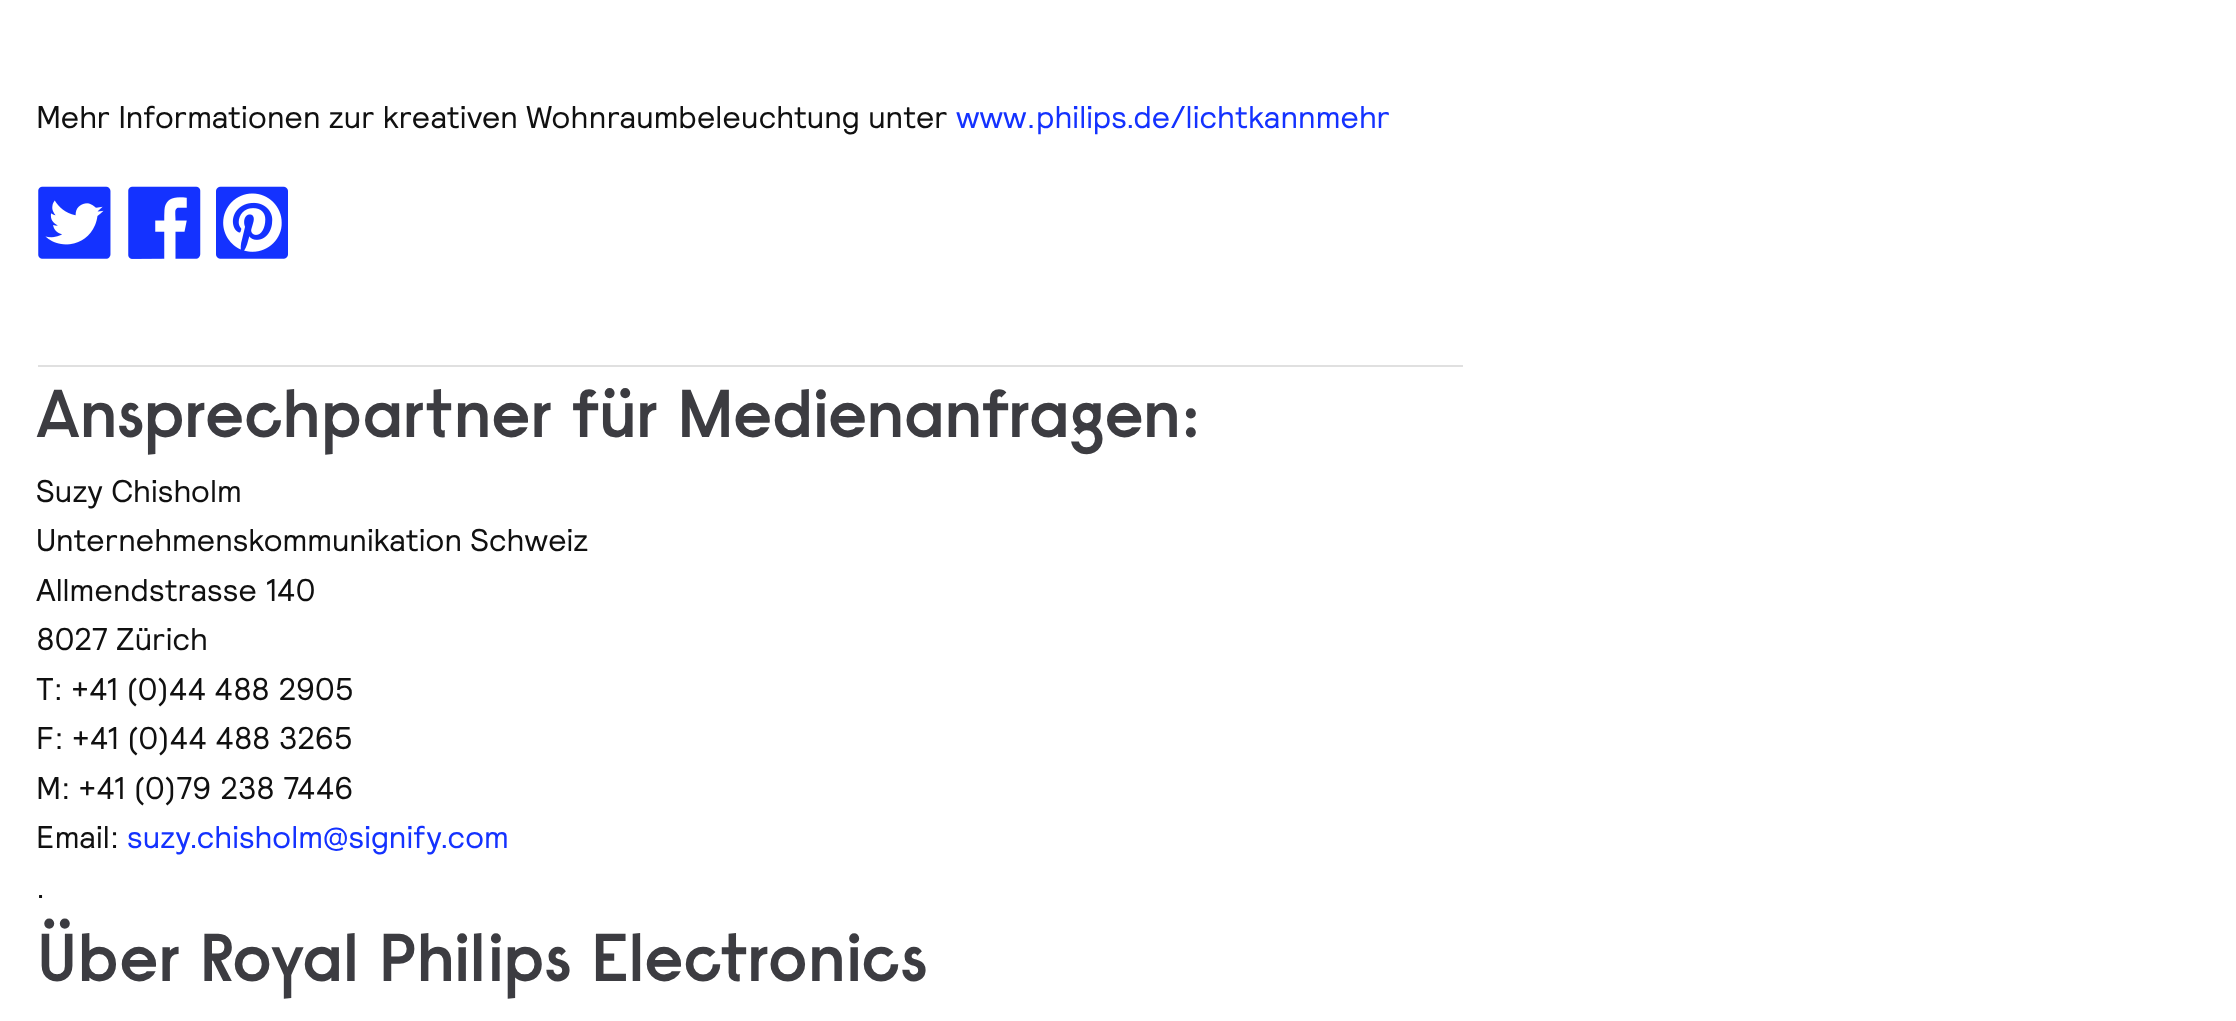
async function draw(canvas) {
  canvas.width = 2236;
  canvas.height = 1021;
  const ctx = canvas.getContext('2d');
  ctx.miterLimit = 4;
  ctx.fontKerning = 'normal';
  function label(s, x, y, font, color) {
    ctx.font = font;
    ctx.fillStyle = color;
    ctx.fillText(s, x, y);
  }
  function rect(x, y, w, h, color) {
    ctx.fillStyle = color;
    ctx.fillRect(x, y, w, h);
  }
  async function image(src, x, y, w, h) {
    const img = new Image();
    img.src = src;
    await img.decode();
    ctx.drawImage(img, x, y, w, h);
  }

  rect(0, 0, 2236, 1021, '#fff');
  label('Mehr Informationen zur kreativen Wohnraumbeleuchtung unter', 36, 128, '31.5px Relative', '#101010');
  label('www.philips.de/lichtkannmehr', 956, 128, '31.5px Relative', '#1432ff');
  await image('assets/img1.png', 38, 186, 73, 73);
  await image('assets/img2.png', 128, 186, 73, 73);
  await image('assets/img3.png', 216, 186, 72, 73);
  rect(38, 365, 1425, 2, '#e0e0e0');
  ctx.letterSpacing = '-0.45px';
  label('Ansprechpartner für Medienanfragen:', 36, 437, '600 67.5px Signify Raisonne', '#3c3c41');
  ctx.letterSpacing = '0px';
  label('Suzy Chisholm', 36, 502, '31.5px Relative', '#101010');
  label('Unternehmenskommunikation Schweiz', 36, 551, '31.5px Relative', '#101010');
  label('Allmendstrasse 140', 36, 601, '31.5px Relative', '#101010');
  label('8027 Zürich', 36, 650, '31.5px Relative', '#101010');
  label('T: +41 (0)44 488 2905', 36, 700, '31.5px Relative', '#101010');
  label('F: +41 (0)44 488 3265', 36, 749, '31.5px Relative', '#101010');
  label('M: +41 (0)79 238 7446', 36, 799, '31.5px Relative', '#101010');
  label('Email:', 36, 848, '31.5px Relative', '#101010');
  label('suzy.chisholm@signify.com', 127, 848, '31.5px Relative', '#1432ff');
  label('.', 36, 898, '31.5px Relative', '#101010');
  ctx.letterSpacing = '-0.45px';
  label('Über Royal Philips Electronics', 36, 981, '600 67.5px Signify Raisonne', '#3c3c41');
}

draw(document.querySelector('canvas'));
